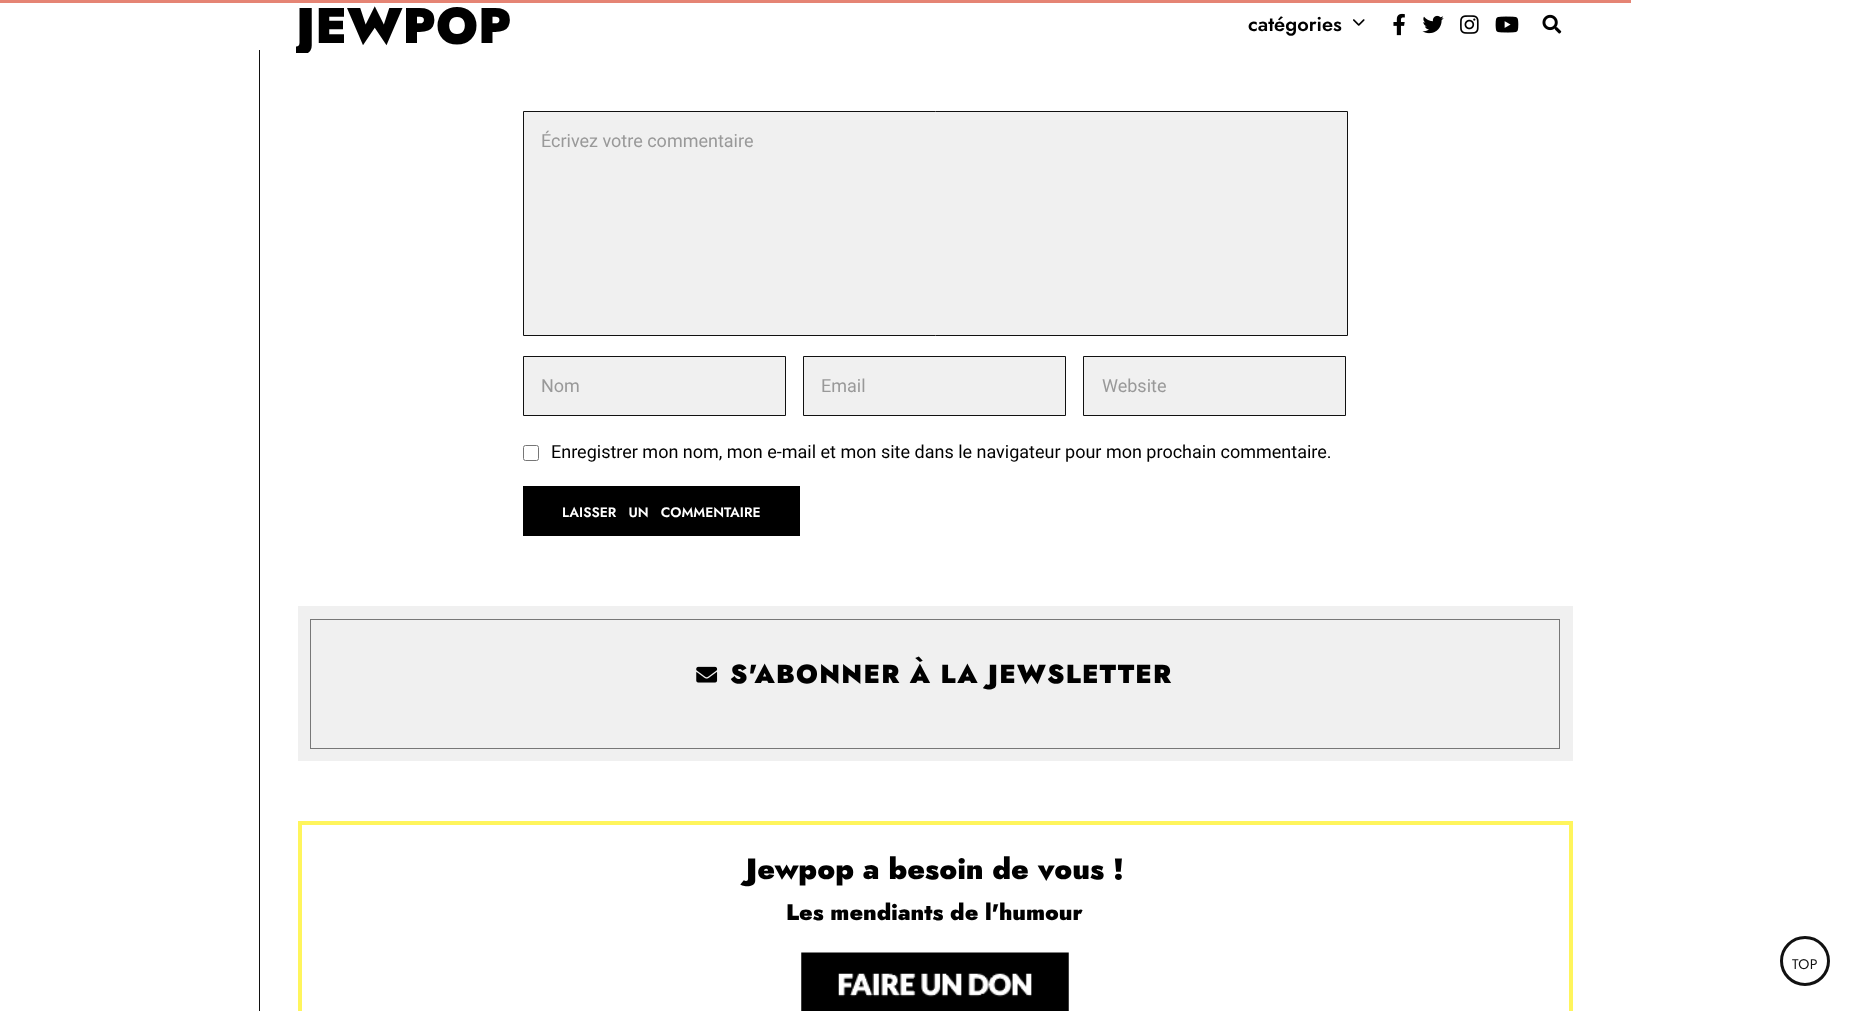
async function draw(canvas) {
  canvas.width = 1867;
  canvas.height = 1011;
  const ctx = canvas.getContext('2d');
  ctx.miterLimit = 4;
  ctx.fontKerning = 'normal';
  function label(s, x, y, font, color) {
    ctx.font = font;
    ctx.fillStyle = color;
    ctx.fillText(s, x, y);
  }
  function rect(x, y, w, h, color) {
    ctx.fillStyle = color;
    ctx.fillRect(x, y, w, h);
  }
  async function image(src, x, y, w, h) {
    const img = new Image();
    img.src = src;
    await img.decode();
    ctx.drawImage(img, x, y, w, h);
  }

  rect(0, 0, 1867, 1011, '#fff');
  rect(0, 0, 1631, 3, '#e58474');
  rect(259, 50, 1, 961, '#111');
  ctx.save();
  ctx.beginPath();
  ctx.rect(296, 0, 215, 53);
  ctx.clip();
  label('JEWPOP', 296, 43, '900 50px Jost', '#000');
  ctx.restore();
  label('catégories', 1248, 31, '600 20px Jost', '#000');
  await image('assets/img1.png', 1353, 19, 12, 7);
  await image('assets/img2.png', 1393, 13, 12, 23);
  await image('assets/img3.png', 1422, 15, 22, 19);
  await image('assets/img4.png', 1460, 15, 19, 19);
  await image('assets/img5.png', 1495, 16, 24, 17);
  await image('assets/img6.png', 1542, 14, 20, 20);
  ctx.fillStyle = '#f0f0f0';
  ctx.beginPath();
  ctx.rect(523.5, 111.5, 824, 224);
  ctx.fill();
  ctx.strokeStyle = '#111';
  ctx.stroke();
  label('Écrivez votre commentaire', 541, 147, '18px Roboto', '#999');
  ctx.fillStyle = '#f0f0f0';
  ctx.beginPath();
  ctx.rect(523.5, 356.5, 262, 59);
  ctx.fill();
  ctx.stroke();
  label('Nom', 541, 392, '18px Roboto', '#999');
  ctx.fillStyle = '#f0f0f0';
  ctx.beginPath();
  ctx.rect(803.5, 356.5, 262, 59);
  ctx.fill();
  ctx.stroke();
  label('Email', 821, 392, '18px Roboto', '#999');
  ctx.fillStyle = '#f0f0f0';
  ctx.beginPath();
  ctx.rect(1083.5, 356.5, 262, 59);
  ctx.fill();
  ctx.stroke();
  label('Website', 1102, 392, '18px Roboto', '#999');
  ctx.beginPath();
  ctx.roundRect(523.5, 445.5, 15, 15, 2);
  ctx.strokeStyle = '#767676';
  ctx.stroke();
  label('Enregistrer mon nom, mon e-mail et mon site dans le navigateur pour mon prochain commentaire.', 551, 458, '18px Roboto', '#000');
  rect(523, 486, 277, 50, '#000');
  ctx.wordSpacing = '8px';
  label('LAISSER UN COMMENTAIRE', 562, 517, '600 13.75px Jost', '#fff');
  rect(298, 606, 1275, 155, '#f0f0f0');
  ctx.strokeStyle = '#777';
  ctx.strokeRect(310.5, 619.5, 1249, 129);
  await image('assets/img7.png', 696, 666, 22, 17);
  ctx.letterSpacing = '1.25px';
  ctx.wordSpacing = '0px';
  label('S\'ABONNER À LA JEWSLETTER', 730, 683, '900 26px Jost', '#000');
  ctx.strokeStyle = '#fff55c';
  ctx.lineWidth = 4;
  ctx.strokeRect(300, 823, 1271, 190);
  ctx.letterSpacing = '0px';
  label('Jewpop a besoin de vous !', 746, 879, '900 29.25px Jost', '#000');
  label('Les mendiants de l\'humour', 786, 920, '900 22.5px Jost', '#000');
  await image('assets/img8.png', 801, 952, 268, 59);
  ctx.beginPath();
  ctx.arc(1805, 961, 23.5, 0, 2 * Math.PI);
  ctx.strokeStyle = '#111';
  ctx.lineWidth = 3;
  ctx.stroke();
  ctx.letterSpacing = '0.5px';
  label('TOP', 1792, 969, '14px Jost', '#111');
}

draw(document.querySelector('canvas'));
